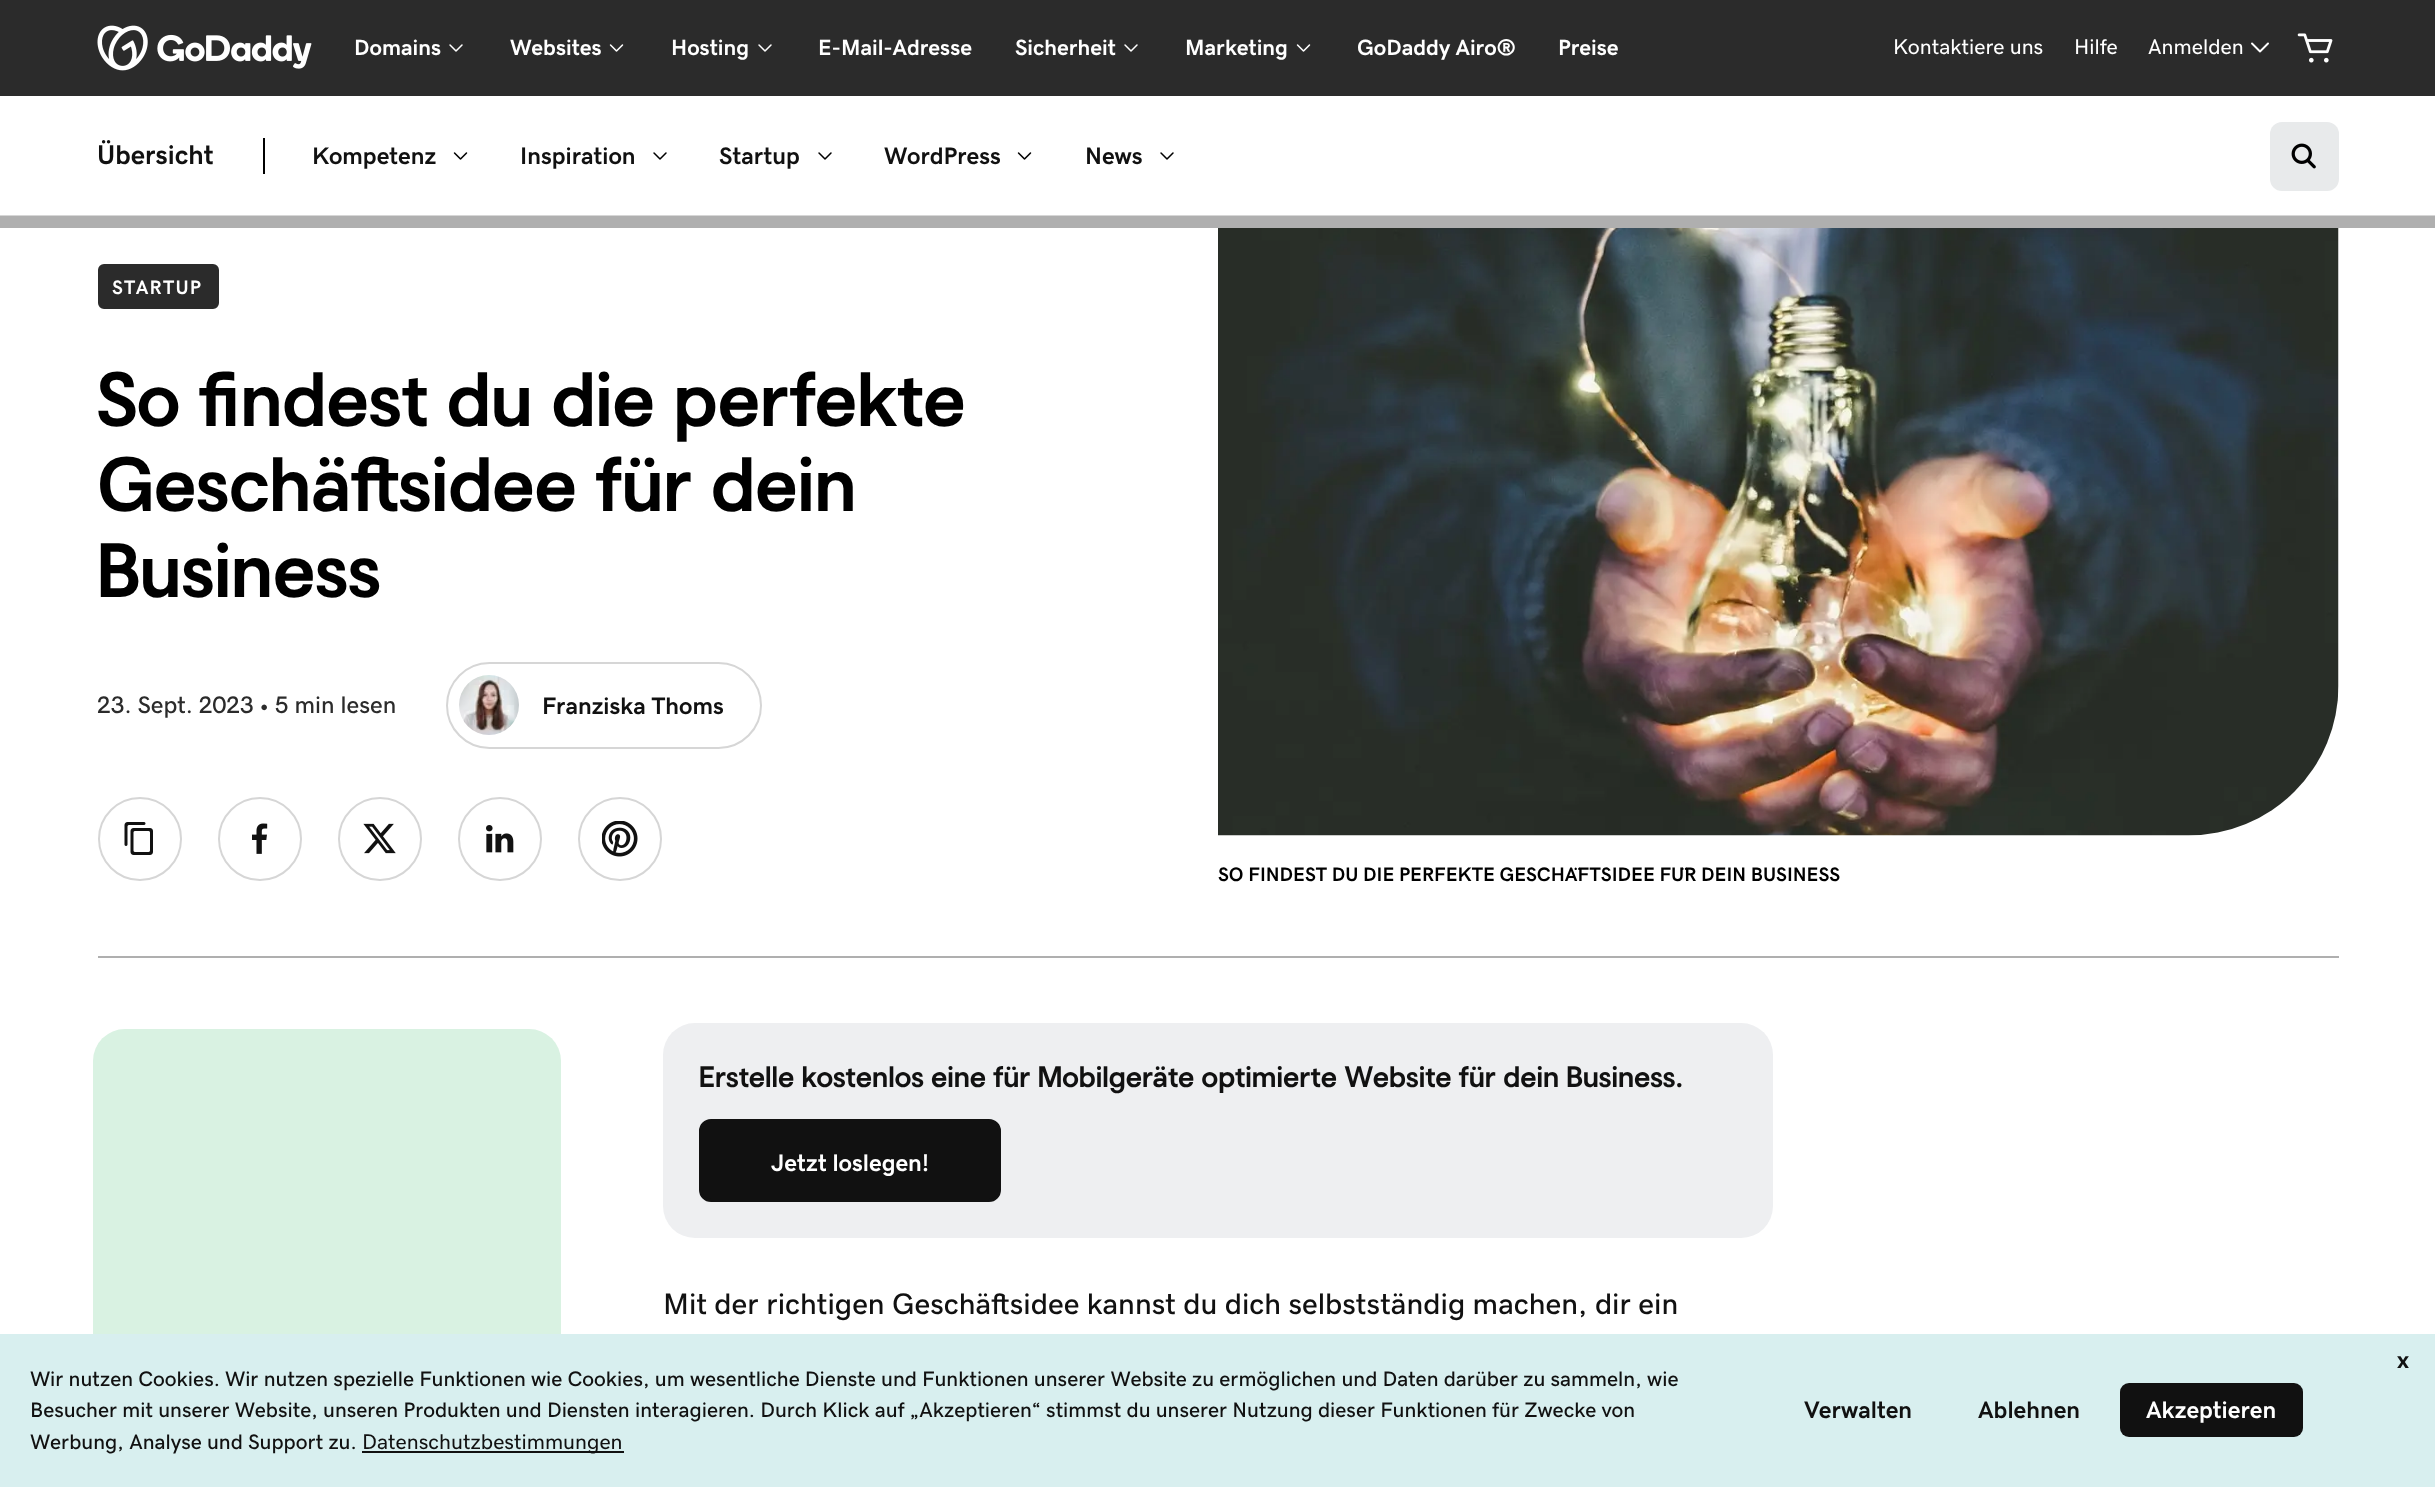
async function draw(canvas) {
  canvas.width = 2435;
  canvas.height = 1487;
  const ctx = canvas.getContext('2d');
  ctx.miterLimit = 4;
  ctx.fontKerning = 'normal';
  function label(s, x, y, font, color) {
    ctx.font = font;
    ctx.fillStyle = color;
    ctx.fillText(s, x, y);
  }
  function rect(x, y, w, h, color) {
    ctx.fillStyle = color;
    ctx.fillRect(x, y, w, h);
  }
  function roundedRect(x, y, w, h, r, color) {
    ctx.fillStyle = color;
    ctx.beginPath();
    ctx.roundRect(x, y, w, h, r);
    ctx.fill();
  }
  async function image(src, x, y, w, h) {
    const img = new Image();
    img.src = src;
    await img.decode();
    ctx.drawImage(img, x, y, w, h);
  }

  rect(0, 0, 2435, 1487, '#fff');
  rect(0, 0, 2435, 96, '#2b2b2b');
  await image('assets/img1.png', 97, 25, 215, 46);
  label('Domains', 354, 55, '800 22.25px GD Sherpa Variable', '#fff');
  await image('assets/img2.png', 449, 44, 14, 8);
  label('Websites', 510, 55, '800 22.25px GD Sherpa Variable', '#fff');
  await image('assets/img3.png', 609, 44, 15, 8);
  label('Hosting', 671, 55, '800 22.25px GD Sherpa Variable', '#fff');
  await image('assets/img2.png', 758, 44, 14, 8);
  label('E-Mail-Adresse', 818, 55, '800 22.25px GD Sherpa Variable', '#fff');
  label('Sicherheit', 1015, 55, '800 22.25px GD Sherpa Variable', '#fff');
  await image('assets/img2.png', 1124, 44, 14, 8);
  label('Marketing', 1185, 55, '800 22.25px GD Sherpa Variable', '#fff');
  await image('assets/img3.png', 1296, 44, 15, 8);
  label('GoDaddy Airo®', 1357, 55, '800 22.25px GD Sherpa Variable', '#fff');
  label('Preise', 1558, 55, '800 22.25px GD Sherpa Variable', '#fff');
  label('Kontaktiere uns', 1893, 54, '21.25px GD Sherpa Variable', '#fff');
  label('Hilfe', 2074, 54, '21.25px GD Sherpa Variable', '#fff');
  label('Anmelden', 2148, 54, '21.25px GD Sherpa Variable', '#fff');
  await image('assets/img4.png', 2251, 42, 18, 11);
  await image('assets/img5.png', 2297, 33, 36, 30);
  rect(0, 215, 2435, 1, '#d6d6d6');
  label('Übersicht', 97, 164, '800 27px GD Sherpa Variable', '#111');
  rect(263, 138, 2, 36, '#000');
  label('Kompetenz', 312, 164, 'bold 24px "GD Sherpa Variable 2"', '#111');
  await image('assets/img6.png', 453, 152, 15, 8);
  label('Inspiration', 520, 164, 'bold 24px "GD Sherpa Variable 2"', '#111');
  await image('assets/img7.png', 653, 152, 14, 8);
  label('Startup', 719, 164, 'bold 24px "GD Sherpa Variable 2"', '#111');
  await image('assets/img7.png', 818, 152, 14, 8);
  label('WordPress', 884, 164, 'bold 24px "GD Sherpa Variable 2"', '#111');
  await image('assets/img6.png', 1017, 152, 15, 8);
  label('News', 1085, 164, 'bold 24px "GD Sherpa Variable 2"', '#111');
  await image('assets/img7.png', 1160, 152, 14, 8);
  roundedRect(2270, 122, 69, 69, 12, '#e8eaeb');
  await image('assets/img8.png', 2291, 143, 25, 26);
  rect(0, 216, 2435, 12, '#afafaf');
  rect(98, 956, 2241, 2, '#afafaf');
  ctx.fillStyle = '#2b2b2b';
  ctx.beginPath();
  ctx.roundRect(99.5, 265.5, 118, 42, 4.5);
  ctx.fill();
  ctx.strokeStyle = '#2b2b2b';
  ctx.lineWidth = 3;
  ctx.stroke();
  ctx.letterSpacing = '1.25px';
  label('STARTUP', 112, 294, 'bold 19.5px GD Sherpa Variable', '#fff');
  ctx.letterSpacing = '0px';
  label('So findest du die perfekte', 97, 426, 'bold 78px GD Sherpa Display', '#000');
  label('Geschäftsidee für dein', 97, 511, 'bold 78px GD Sherpa Display', '#000');
  label('Business', 97, 597, 'bold 78px GD Sherpa Display', '#000');
  label('23. Sept. 2023 • 5 min lesen', 97, 713, '500 24px GD Sherpa Variable', '#2b2b2b');
  ctx.beginPath();
  ctx.roundRect(447, 663, 314, 85, 42.5);
  ctx.strokeStyle = '#d6d6d6';
  ctx.lineWidth = 2;
  ctx.stroke();
  await image('assets/img9.png', 459, 675, 60, 60);
  label('Franziska Thoms', 542, 714, 'bold 24px GD Sherpa Variable', '#111');
  ctx.beginPath();
  ctx.arc(140, 839, 41, 0, 2 * Math.PI);
  ctx.stroke();
  await image('assets/img10.png', 124, 822, 29, 33);
  ctx.beginPath();
  ctx.arc(260, 839, 41, 0, 2 * Math.PI);
  ctx.stroke();
  await image('assets/img11.png', 252, 823, 16, 31);
  ctx.beginPath();
  ctx.arc(380, 839, 41, 0, 2 * Math.PI);
  ctx.stroke();
  await image('assets/img12.png', 363, 823, 33, 31);
  ctx.beginPath();
  ctx.arc(500, 839, 41, 0, 2 * Math.PI);
  ctx.stroke();
  await image('assets/img13.png', 486, 825, 28, 28);
  ctx.beginPath();
  ctx.arc(620, 839, 41, 0, 2 * Math.PI);
  ctx.stroke();
  await image('assets/img14.png', 602, 821, 36, 36);
  await image('assets/img15.png', 1218, 228, 1121, 608);
  label('SO FINDEST DU DIE PERFEKTE GESCHÄFTSIDEE FÜR DEIN BUSINESS', 1218, 881, 'bold 19.5px GD Sherpa Variable', '#000');
  roundedRect(93, 1029, 468, 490, 32, '#d9f2e2');
  roundedRect(663, 1023, 1110, 215, 32, '#eeeff1');
  label('Erstelle kostenlos eine für Mobilgeräte optimierte Website für dein Business.', 699, 1087, 'bold 30px GD Sherpa Display', '#111');
  ctx.beginPath();
  ctx.roundRect(700.5, 1120.5, 299, 80, 10.5);
  ctx.fill();
  ctx.strokeStyle = '#111';
  ctx.lineWidth = 3;
  ctx.stroke();
  label('Jetzt loslegen!', 771, 1171, '800 24px GD Sherpa Variable', '#fff');
  label('Mit der richtigen Geschäftsidee kannst du dich selbstständig machen, dir ein', 663, 1314, '500 29.8px GD Sherpa Variable', '#111');
  rect(0, 1334, 2435, 153, '#d8efef');
  label('x', 2397, 1368, 'bold 24px "GD Sherpa Variable 2"', '#111');
  label('Wir nutzen Cookies. Wir nutzen spezielle Funktionen wie Cookies, um wesentliche Dienste und Funktionen unserer Website zu ermöglichen und Daten darüber zu sammeln, wie', 30, 1386, '500 21px GD Sherpa Variable', '#111');
  label('Besucher mit unserer Website, unseren Produkten und Diensten interagieren. Durch Klick auf „Akzeptieren“ stimmst du unserer Nutzung dieser Funktionen für Zwecke von', 30, 1417, '500 21px GD Sherpa Variable', '#111');
  label('Werbung, Analyse und Support zu.', 30, 1449, '500 21px GD Sherpa Variable', '#111');
  rect(362, 1451, 262, 2, '#111');
  label('Datenschutzbestimmungen', 362, 1449, '21.25px GD Sherpa Variable', '#111');
  label('Verwalten', 1804, 1418, 'bold 24px "GD Sherpa Variable 2"', '#111');
  label('Ablehnen', 1978, 1418, 'bold 24px "GD Sherpa Variable 2"', '#111');
  roundedRect(2120, 1383, 183, 54, 9, '#111');
  label('Akzeptieren', 2146, 1418, 'bold 24px "GD Sherpa Variable 2"', '#fff');
}

draw(document.querySelector('canvas'));
